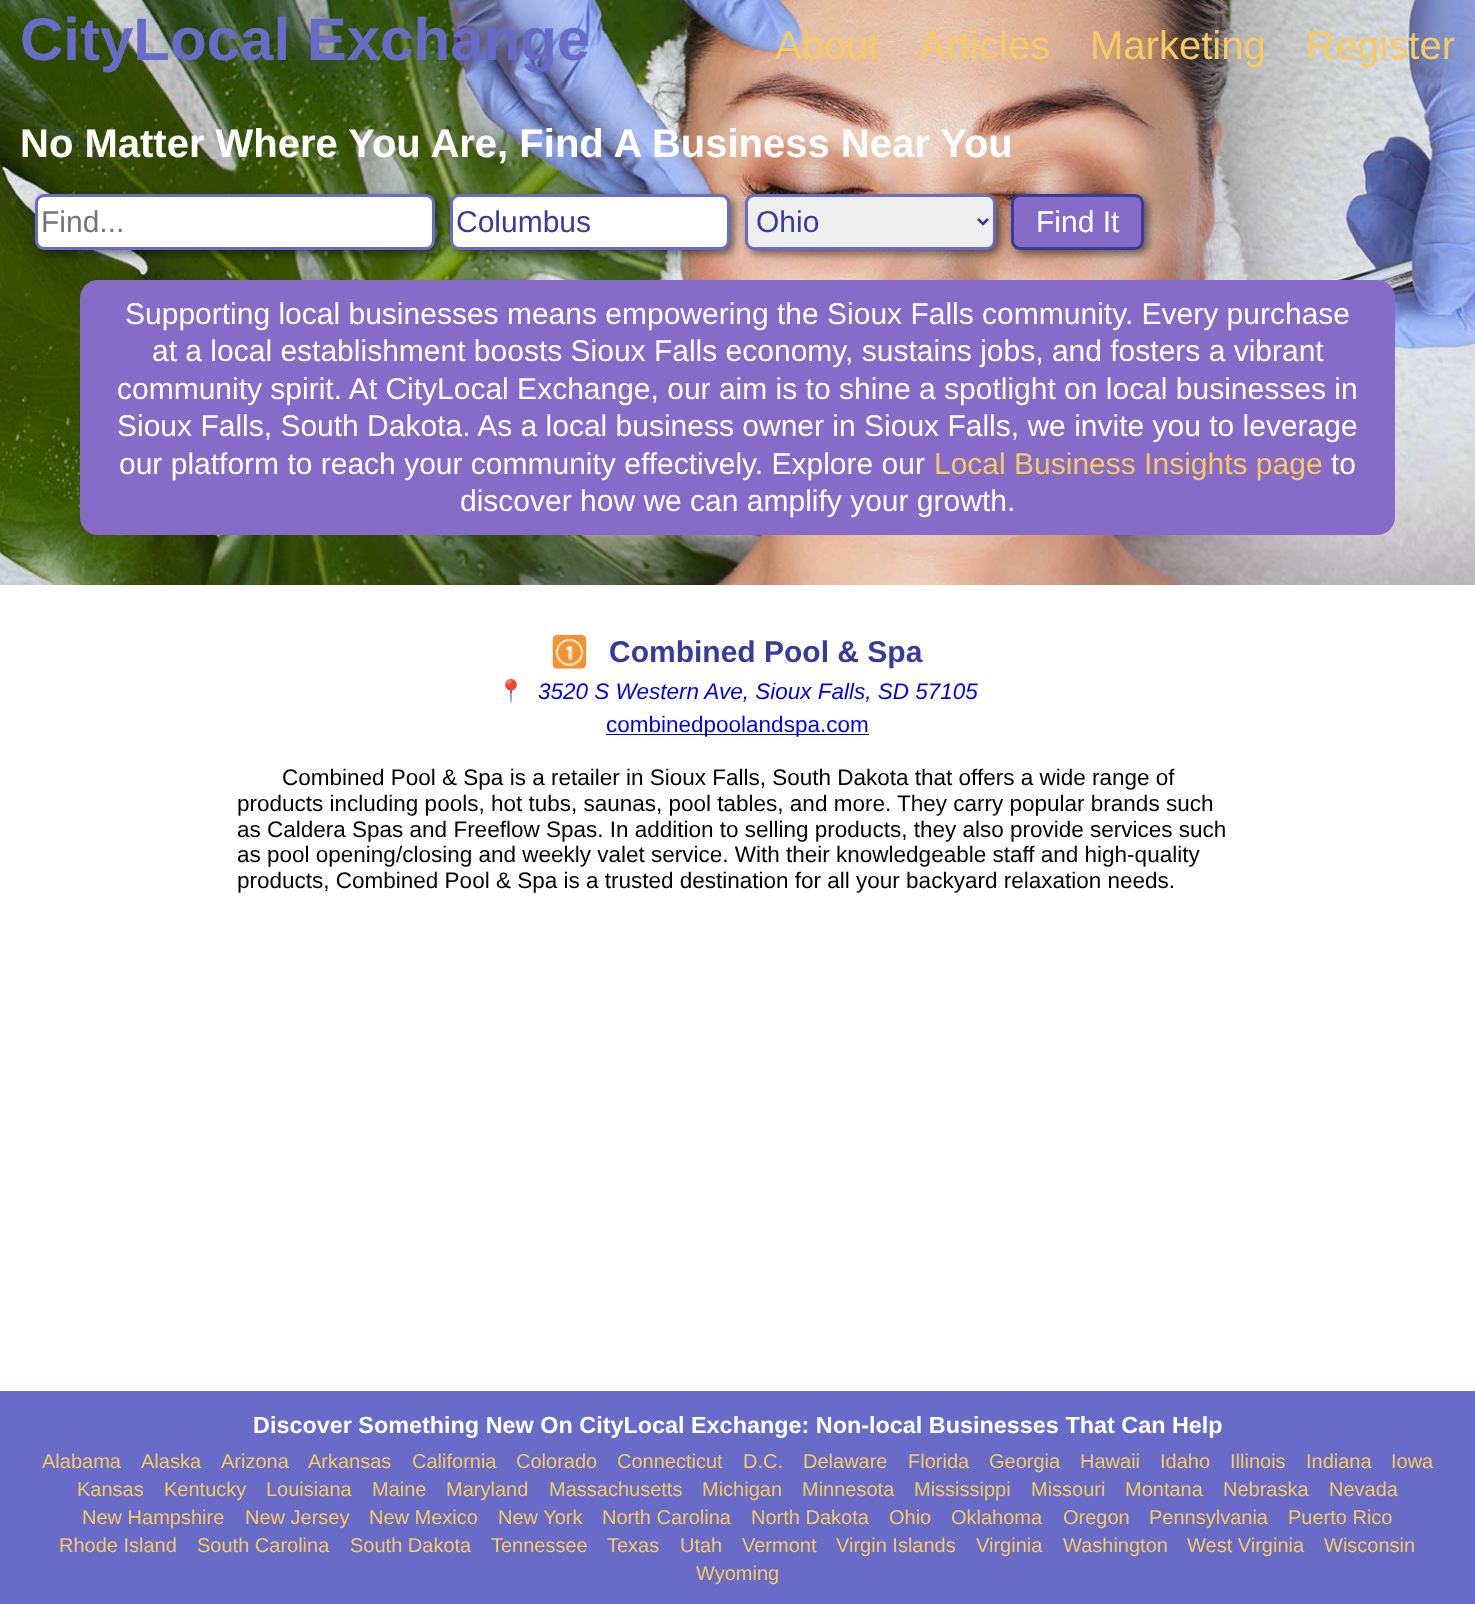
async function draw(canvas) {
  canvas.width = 1475;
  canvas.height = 1604;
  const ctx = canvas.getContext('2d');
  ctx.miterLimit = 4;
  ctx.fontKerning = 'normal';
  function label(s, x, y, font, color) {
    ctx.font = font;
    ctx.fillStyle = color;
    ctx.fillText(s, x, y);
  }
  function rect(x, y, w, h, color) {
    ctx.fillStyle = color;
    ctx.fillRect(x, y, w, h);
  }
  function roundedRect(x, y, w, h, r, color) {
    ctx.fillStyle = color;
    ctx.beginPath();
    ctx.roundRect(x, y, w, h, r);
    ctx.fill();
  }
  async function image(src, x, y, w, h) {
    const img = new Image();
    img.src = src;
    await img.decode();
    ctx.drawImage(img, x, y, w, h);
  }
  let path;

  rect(0, 0, 1475, 1604, '#fff');
  await image('assets/img1.png', 0, 0, 1475, 585);
  label('CityLocal Exchange', 20, 60, 'bold 60px Liberation Sans', '#686cc8');
  label('About', 775, 59, '40px Liberation Sans', '#f7cb62');
  label('Articles', 919, 59, '40px Liberation Sans', '#f7cb62');
  label('Marketing', 1090, 59, '40px Liberation Sans', '#f7cb62');
  label('Register', 1306, 59, '40px Liberation Sans', '#f7cb62');
  label('No Matter Where You Are, Find A Business Near You', 20, 157, 'bold 40px Liberation Sans', '#fff');
  ctx.fillStyle = '#00000080';
  ctx.filter = 'blur(4px)';
  ctx.beginPath();
  ctx.roundRect(39, 198, 400, 56, 9);
  ctx.fill();
  ctx.filter = 'none';
  ctx.fillStyle = '#fff';
  ctx.beginPath();
  ctx.roundRect(36.5, 195.5, 397, 53, 7.5);
  ctx.fill();
  ctx.strokeStyle = '#686cc8';
  ctx.lineWidth = 3;
  ctx.stroke();
  label('Find...', 41, 232, '30px Liberation Sans', '#757575');
  ctx.fillStyle = '#00000080';
  ctx.filter = 'blur(4px)';
  ctx.beginPath();
  ctx.roundRect(454, 198, 280, 56, 9);
  ctx.fill();
  ctx.filter = 'none';
  ctx.fillStyle = '#fff';
  ctx.beginPath();
  ctx.roundRect(451.5, 195.5, 277, 53, 7.5);
  ctx.fill();
  ctx.stroke();
  label('Columbus', 456, 232, '30px Liberation Sans', '#383c98');
  ctx.fillStyle = '#00000080';
  ctx.filter = 'blur(4px)';
  ctx.beginPath();
  ctx.roundRect(749, 198, 251, 56, 9);
  ctx.fill();
  ctx.filter = 'none';
  ctx.fillStyle = '#efefef';
  ctx.beginPath();
  ctx.roundRect(746.5, 195.5, 248, 53, 7.5);
  ctx.fill();
  ctx.stroke();
  path = new Path2D('M978 219L983 224L988 219');
  ctx.strokeStyle = '#383c98';
  ctx.lineWidth = 2.5;
  ctx.stroke(path);
  label('Ohio', 756, 232, '30px Liberation Sans', '#383c98');
  ctx.fillStyle = '#00000080';
  ctx.filter = 'blur(4px)';
  ctx.beginPath();
  ctx.roundRect(1015, 198, 133, 56, 9);
  ctx.fill();
  ctx.filter = 'none';
  ctx.fillStyle = '#866cc8';
  ctx.beginPath();
  ctx.roundRect(1012.5, 195.5, 130, 53, 7.5);
  ctx.fill();
  ctx.lineWidth = 3;
  ctx.stroke();
  label('Find It', 1036, 232, '30px Liberation Sans', '#fff');
  roundedRect(80, 280, 1315, 255, 18, '#866cc8');
  label('Supporting local businesses means empowering the Sioux Falls community. Every purchase', 125, 324, '30px Liberation Sans', '#fff');
  label('at a local establishment boosts Sioux Falls economy, sustains jobs, and fosters a vibrant', 152, 361, '30px Liberation Sans', '#fff');
  label('community spirit. At CityLocal Exchange, our aim is to shine a spotlight on local businesses in', 117, 399, '30px Liberation Sans', '#fff');
  label('Sioux Falls, South Dakota. As a local business owner in Sioux Falls, we invite you to leverage', 117, 436, '30px Liberation Sans', '#fff');
  label('our platform to reach your community effectively. Explore our', 119, 474, '30px Liberation Sans', '#fff');
  label('Local Business Insights page', 934, 474, '30px Liberation Sans', '#f7cb62');
  label('to', 1331, 474, '30px Liberation Sans', '#fff');
  label('discover how we can amplify your growth.', 460, 511, '30px Liberation Sans', '#fff');
  await image('assets/img2.png', 552, 635, 35, 34);
  label('Combined Pool & Spa', 609, 662, 'bold 30px Liberation Sans', '#383c98');
  label('📍', 497, 699, '22.5px Noto Color Emoji', '#00e');
  label('3520 S Western Ave, Sioux Falls, SD 57105', 538, 699, 'italic 22.5px Liberation Sans', '#00e');
  rect(606, 734, 263, 1, '#00e');
  label('combinedpoolandspa.com', 606, 732, '22.5px Liberation Sans', '#00e');
  label('Combined Pool & Spa is a retailer in Sioux Falls, South Dakota that offers a wide range of', 282, 785, '22.5px Liberation Sans', '#000');
  label('products including pools, hot tubs, saunas, pool tables, and more. They carry popular brands such', 237, 811, '22.5px Liberation Sans', '#000');
  label('as Caldera Spas and Freeflow Spas. In addition to selling products, they also provide services such', 237, 837, '22.5px Liberation Sans', '#000');
  label('as pool opening/closing and weekly valet service. With their knowledgeable staff and high-quality', 237, 862, '22.5px Liberation Sans', '#000');
  label('products, Combined Pool & Spa is a trusted destination for all your backyard relaxation needs.', 237, 888, '22.5px Liberation Sans', '#000');
  rect(0, 1391, 1475, 213, '#686cc8');
  label('Discover Something New On CityLocal Exchange: Non-local Businesses That Can Help', 253, 1433, 'bold 23.4px Liberation Sans', '#fff');
  label('Alabama', 42, 1468, '20px Liberation Sans', '#f7cb62');
  label('Alaska', 141, 1468, '20px Liberation Sans', '#f7cb62');
  label('Arizona', 221, 1468, '20px Liberation Sans', '#f7cb62');
  label('Arkansas', 308, 1468, '20px Liberation Sans', '#f7cb62');
  label('California', 412, 1468, '20px Liberation Sans', '#f7cb62');
  label('Colorado', 516, 1468, '20px Liberation Sans', '#f7cb62');
  label('Connecticut', 617, 1468, '20px Liberation Sans', '#f7cb62');
  label('D.C.', 743, 1468, '20px Liberation Sans', '#f7cb62');
  label('Delaware', 803, 1468, '20px Liberation Sans', '#f7cb62');
  label('Florida', 908, 1468, '20px Liberation Sans', '#f7cb62');
  label('Georgia', 989, 1468, '20px Liberation Sans', '#f7cb62');
  label('Hawaii', 1080, 1468, '20px Liberation Sans', '#f7cb62');
  label('Idaho', 1160, 1468, '20px Liberation Sans', '#f7cb62');
  label('Illinois', 1230, 1468, '20px Liberation Sans', '#f7cb62');
  label('Indiana', 1306, 1468, '20px Liberation Sans', '#f7cb62');
  label('Iowa', 1391, 1468, '20px Liberation Sans', '#f7cb62');
  label('Kansas', 77, 1496, '20px Liberation Sans', '#f7cb62');
  label('Kentucky', 164, 1496, '20px Liberation Sans', '#f7cb62');
  label('Louisiana', 266, 1496, '20px Liberation Sans', '#f7cb62');
  label('Maine', 372, 1496, '20px Liberation Sans', '#f7cb62');
  label('Maryland', 446, 1496, '20px Liberation Sans', '#f7cb62');
  label('Massachusetts', 549, 1496, '20px Liberation Sans', '#f7cb62');
  label('Michigan', 702, 1496, '20px Liberation Sans', '#f7cb62');
  label('Minnesota', 802, 1496, '20px Liberation Sans', '#f7cb62');
  label('Mississippi', 914, 1496, '20px Liberation Sans', '#f7cb62');
  label('Missouri', 1031, 1496, '20px Liberation Sans', '#f7cb62');
  label('Montana', 1125, 1496, '20px Liberation Sans', '#f7cb62');
  label('Nebraska', 1223, 1496, '20px Liberation Sans', '#f7cb62');
  label('Nevada', 1329, 1496, '20px Liberation Sans', '#f7cb62');
  label('New Hampshire', 82, 1524, '20px Liberation Sans', '#f7cb62');
  label('New Jersey', 245, 1524, '20px Liberation Sans', '#f7cb62');
  label('New Mexico', 369, 1524, '20px Liberation Sans', '#f7cb62');
  label('New York', 498, 1524, '20px Liberation Sans', '#f7cb62');
  label('North Carolina', 602, 1524, '20px Liberation Sans', '#f7cb62');
  label('North Dakota', 751, 1524, '20px Liberation Sans', '#f7cb62');
  label('Ohio', 889, 1524, '20px Liberation Sans', '#f7cb62');
  label('Oklahoma', 951, 1524, '20px Liberation Sans', '#f7cb62');
  label('Oregon', 1063, 1524, '20px Liberation Sans', '#f7cb62');
  label('Pennsylvania', 1149, 1524, '20px Liberation Sans', '#f7cb62');
  label('Puerto Rico', 1288, 1524, '20px Liberation Sans', '#f7cb62');
  label('Rhode Island', 59, 1552, '20px Liberation Sans', '#f7cb62');
  label('South Carolina', 197, 1552, '20px Liberation Sans', '#f7cb62');
  label('South Dakota', 350, 1552, '20px Liberation Sans', '#f7cb62');
  label('Tennessee', 491, 1552, '20px Liberation Sans', '#f7cb62');
  label('Texas', 607, 1552, '20px Liberation Sans', '#f7cb62');
  label('Utah', 680, 1552, '20px Liberation Sans', '#f7cb62');
  label('Vermont', 742, 1552, '20px Liberation Sans', '#f7cb62');
  label('Virgin Islands', 836, 1552, '20px Liberation Sans', '#f7cb62');
  label('Virginia', 976, 1552, '20px Liberation Sans', '#f7cb62');
  label('Washington', 1063, 1552, '20px Liberation Sans', '#f7cb62');
  label('West Virginia', 1187, 1552, '20px Liberation Sans', '#f7cb62');
  label('Wisconsin', 1324, 1552, '20px Liberation Sans', '#f7cb62');
  label('Wyoming', 696, 1580, '20px Liberation Sans', '#f7cb62');
}

draw(document.querySelector('canvas'));
